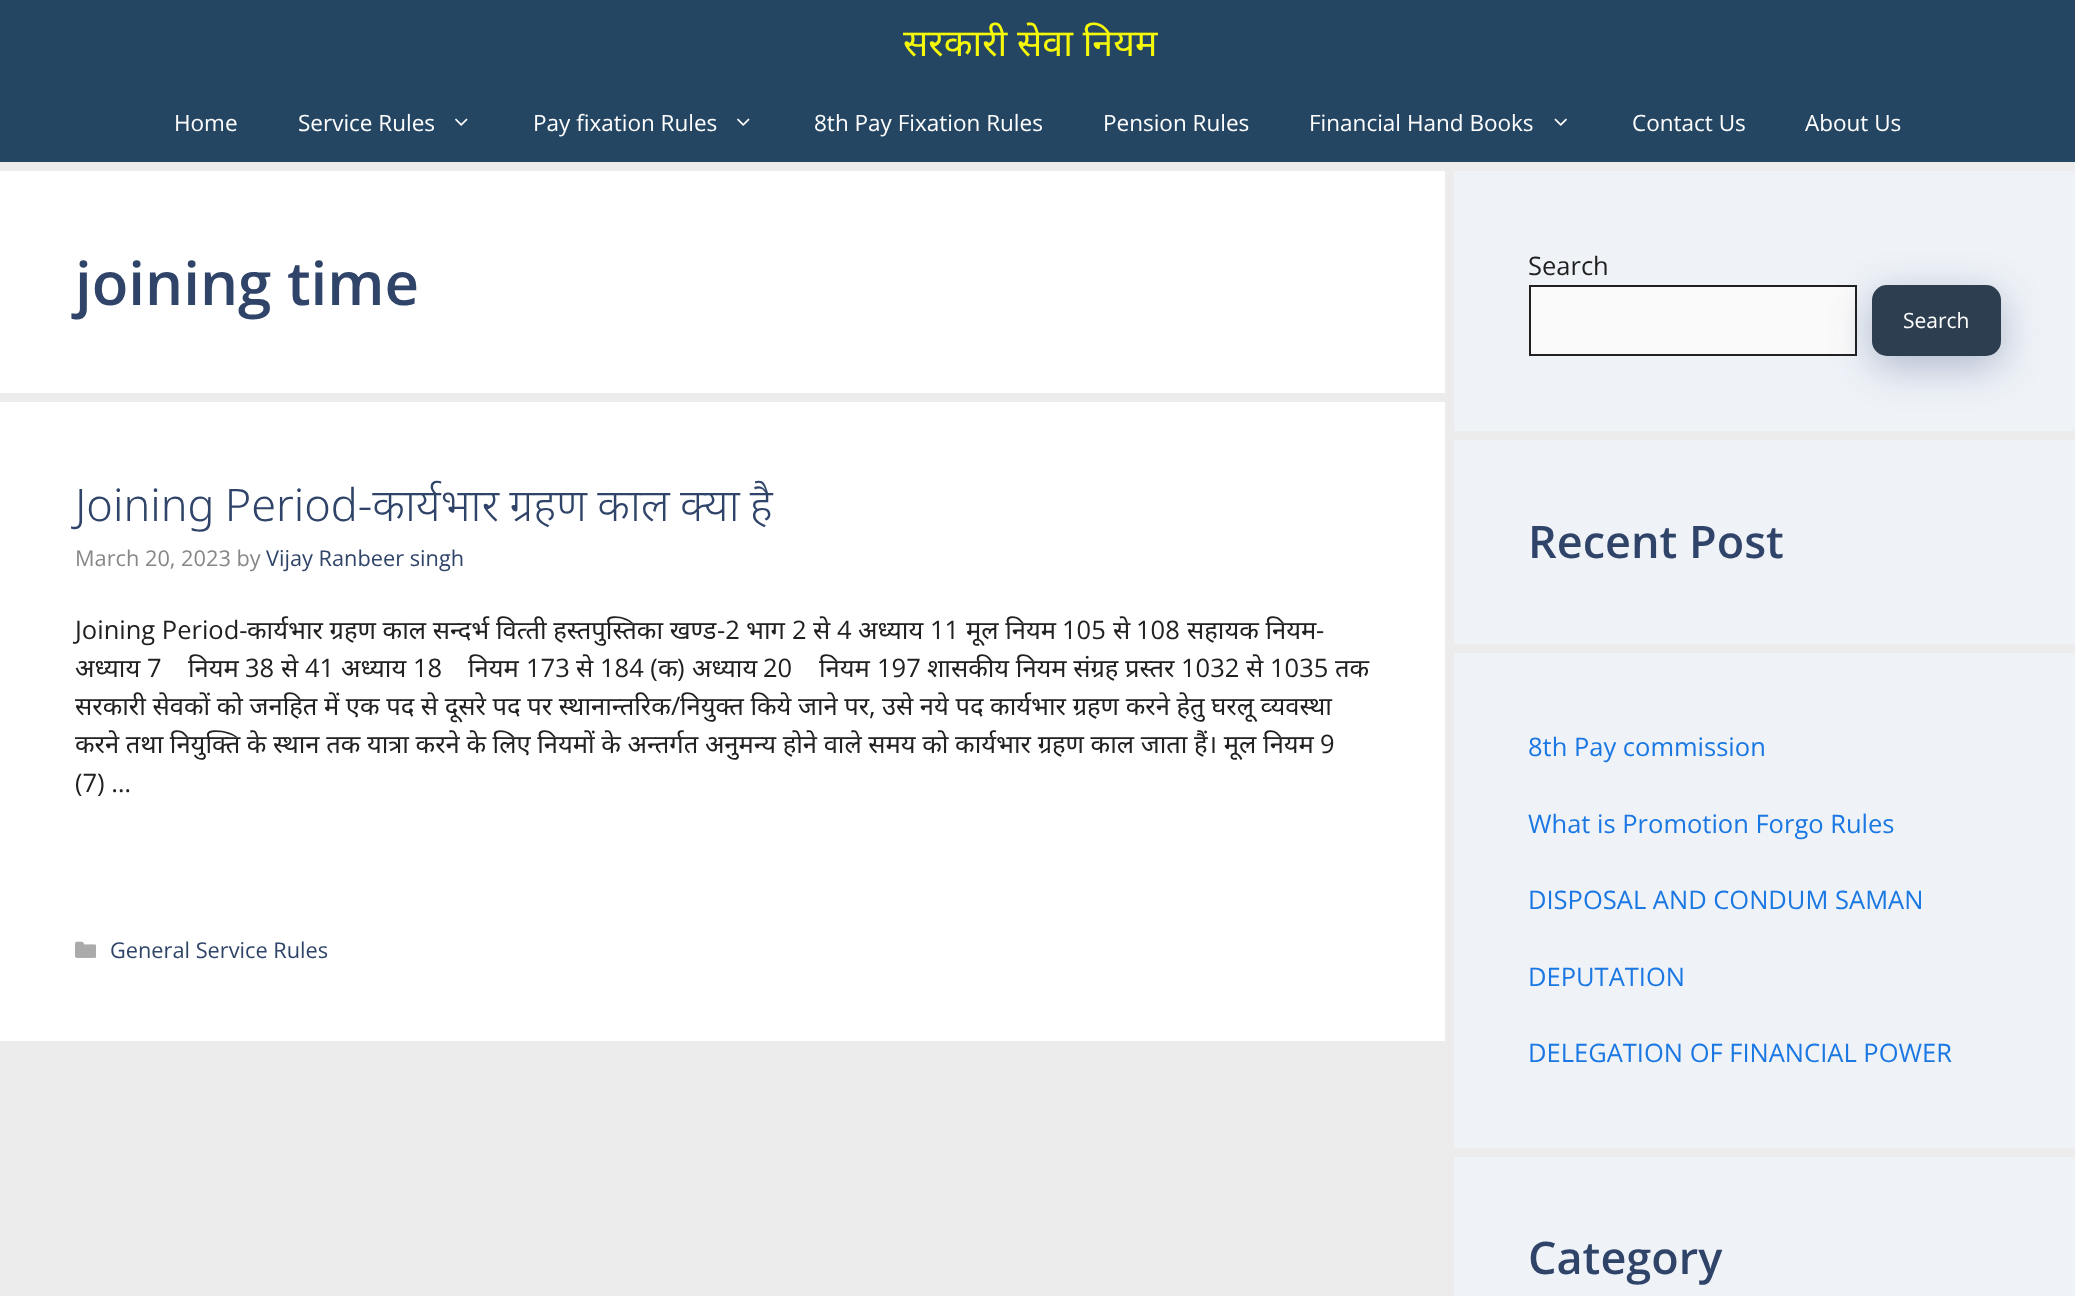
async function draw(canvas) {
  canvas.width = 2075;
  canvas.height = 1296;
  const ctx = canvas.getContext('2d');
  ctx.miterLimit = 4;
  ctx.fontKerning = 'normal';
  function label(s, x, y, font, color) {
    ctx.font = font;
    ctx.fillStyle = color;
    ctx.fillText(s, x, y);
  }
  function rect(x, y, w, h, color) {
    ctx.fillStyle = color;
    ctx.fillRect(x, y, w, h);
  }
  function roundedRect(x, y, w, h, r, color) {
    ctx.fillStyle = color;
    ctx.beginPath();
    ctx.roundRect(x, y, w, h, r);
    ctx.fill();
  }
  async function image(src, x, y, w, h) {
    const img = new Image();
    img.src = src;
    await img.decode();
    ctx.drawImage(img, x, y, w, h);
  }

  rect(0, 0, 2075, 1296, '#ececec');
  rect(0, 0, 2075, 162, '#254663');
  label('सरकारी सेवा नियम', 903, 56, '37.5px Noto Sans', '#f5f809');
  label('Home', 174, 131, '22.5px Open Sans', '#fff');
  label('Service Rules', 298, 131, '22.5px Open Sans', '#fff');
  await image('assets/img1.png', 455, 118, 13, 8);
  label('Pay fixation Rules', 533, 131, '22.5px Open Sans', '#fff');
  await image('assets/img1.png', 737, 118, 13, 8);
  label('8th Pay Fixation Rules', 814, 131, '22.5px Open Sans', '#fff');
  label('Pension Rules', 1103, 131, '22.5px Open Sans', '#fff');
  label('Financial Hand Books', 1309, 131, '22.5px Open Sans', '#fff');
  await image('assets/img2.png', 1554, 118, 13, 8);
  label('Contact Us', 1632, 131, '22.5px Open Sans', '#fff');
  label('About Us', 1805, 131, '22.5px Open Sans', '#fff');
  rect(0, 171, 1445, 222, '#fff');
  label('joining time', 75, 305, '600 60px Open Sans', '#2f4468');
  rect(0, 402, 1445, 639, '#fff');
  ctx.wordSpacing = '-1.5px';
  label('Joining Period-कार्यभार ग्रहण काल क्या है', 75, 521, '300 45px Noto Sans', '#2f4468');
  ctx.wordSpacing = '0px';
  label('March 20, 2023 by', 75, 566, '21.75px Open Sans', '#878787');
  label('Vijay Ranbeer singh', 266, 566, '21.75px Open Sans', '#2f4468');
  label('Joining Period-', 75, 639, '25.5px Open Sans', '#212121');
  label('कार्यभार ग्रहण काल सन्‍दर्भ वित्‍ती हस्‍तपुस्तिका खण्‍ड', 247, 639, '25.5px Noto Sans', '#212121');
  label('-2', 717, 639, '25.5px Open Sans', '#212121');
  label('भाग', 746, 639, '25.5px Noto Sans', '#212121');
  label('2', 792, 639, '25.5px Open Sans', '#212121');
  label('से', 813, 639, '25.5px Noto Sans', '#212121');
  label('4', 837, 639, '25.5px Open Sans', '#212121');
  label('अध्‍याय', 858, 639, '25.5px Noto Sans', '#212121');
  label('11', 930, 639, '25.5px Open Sans', '#212121');
  label('मूल नियम', 966, 639, '25.5px Noto Sans', '#212121');
  label('105', 1062, 639, '25.5px Open Sans', '#212121');
  label('से', 1113, 639, '25.5px Noto Sans', '#212121');
  label('108', 1136, 639, '25.5px Open Sans', '#212121');
  label('सहायक नियम', 1187, 639, '25.5px Noto Sans', '#212121');
  label('-', 1316, 639, '25.5px Open Sans', '#212121');
  label('अध्‍याय', 75, 677, '25.5px Noto Sans', '#212121');
  label('7', 147, 677, '25.5px Open Sans', '#212121');
  label('नियम', 188, 677, '25.5px Noto Sans', '#212121');
  label('38', 245, 677, '25.5px Open Sans', '#212121');
  label('से', 281, 677, '25.5px Noto Sans', '#212121');
  label('41', 305, 677, '25.5px Open Sans', '#212121');
  label('अध्‍याय', 341, 677, '25.5px Noto Sans', '#212121');
  label('18', 413, 677, '25.5px Open Sans', '#212121');
  label('नियम', 468, 677, '25.5px Noto Sans', '#212121');
  label('173', 526, 677, '25.5px Open Sans', '#212121');
  label('से', 576, 677, '25.5px Noto Sans', '#212121');
  label('184 (', 600, 677, '25.5px Open Sans', '#212121');
  label('क', 658, 677, '25.5px Noto Sans', '#212121');
  label(')', 677, 677, '25.5px Open Sans', '#212121');
  label('अध्‍याय', 692, 677, '25.5px Noto Sans', '#212121');
  label('20', 763, 677, '25.5px Open Sans', '#212121');
  label('नियम', 819, 677, '25.5px Noto Sans', '#212121');
  label('197', 877, 677, '25.5px Open Sans', '#212121');
  label('शासकीय नियम संग्रह प्रस्‍तर', 927, 677, '25.5px Noto Sans', '#212121');
  label('1032', 1181, 677, '25.5px Open Sans', '#212121');
  label('से', 1246, 677, '25.5px Noto Sans', '#212121');
  label('1035', 1270, 677, '25.5px Open Sans', '#212121');
  label('तक', 1335, 677, '25.5px Noto Sans', '#212121');
  label('सरकारी सेवकों को जनहित में एक पद से दूसरे पद पर स्‍थानान्‍तरिक', 75, 715, '25.5px Noto Sans', '#212121');
  label('/', 671, 715, '25.5px Open Sans', '#212121');
  label('नियुक्‍त किये जाने पर', 680, 715, '25.5px Noto Sans', '#212121');
  label(',', 869, 715, '25.5px Open Sans', '#212121');
  label('उसे नये पद कार्यभार ग्रहण करने हेतु घरलू व्‍यवस्‍था', 882, 715, '25.5px Noto Sans', '#212121');
  label('करने तथा नियुक्ति के स्‍थान तक यात्रा करने के लिए नियमों के अन्‍तर्गत अनुमन्‍य होने वाले समय को कार्यभार ग्रहण काल जाता हैं। मूल नियम', 75, 753, '25.5px Noto Sans', '#212121');
  label('9', 1320, 753, '25.5px Open Sans', '#212121');
  label('(7) …', 75, 792, '25.5px Open Sans', '#212121');
  await image('assets/img3.png', 75, 941, 21, 17);
  label('General Service Rules', 110, 958, '21.75px Open Sans', '#2f4468');
  rect(1454, 171, 621, 260, '#eff3f8');
  label('Search', 1528, 275, '25.5px Open Sans', '#212121');
  ctx.fillStyle = '#fafafa';
  ctx.beginPath();
  ctx.rect(1530, 286, 326, 69);
  ctx.fill();
  ctx.strokeStyle = '#212121';
  ctx.lineWidth = 2;
  ctx.stroke();
  ctx.fillStyle = '#172b634d';
  ctx.filter = 'blur(21px)';
  ctx.beginPath();
  ctx.roundRect(1872, 296, 129, 70, 15);
  ctx.fill();
  ctx.filter = 'none';
  roundedRect(1872, 285, 129, 71, 15, '#2c3e50');
  label('Search', 1903, 328, '21px Open Sans', '#fff');
  rect(1454, 440, 621, 204, '#eff3f8');
  label('Recent Post', 1528, 558, '600 45px Open Sans', '#2f4468');
  rect(1454, 653, 621, 495, '#eff3f8');
  label('8th Pay commission', 1528, 756, '25.5px Open Sans', '#1b78e2');
  label('What is Promotion Forgo Rules', 1528, 833, '25.5px Open Sans', '#1b78e2');
  label('DISPOSAL AND CONDUM SAMAN', 1528, 909, '25.5px Open Sans', '#1b78e2');
  label('DEPUTATION', 1528, 986, '25.5px Open Sans', '#1b78e2');
  label('DELEGATION OF FINANCIAL POWER', 1528, 1062, '25.5px Open Sans', '#1b78e2');
  rect(1454, 1157, 621, 139, '#eff3f8');
  label('Category', 1528, 1274, '600 45px Open Sans', '#2f4468');
}

draw(document.querySelector('canvas'));
